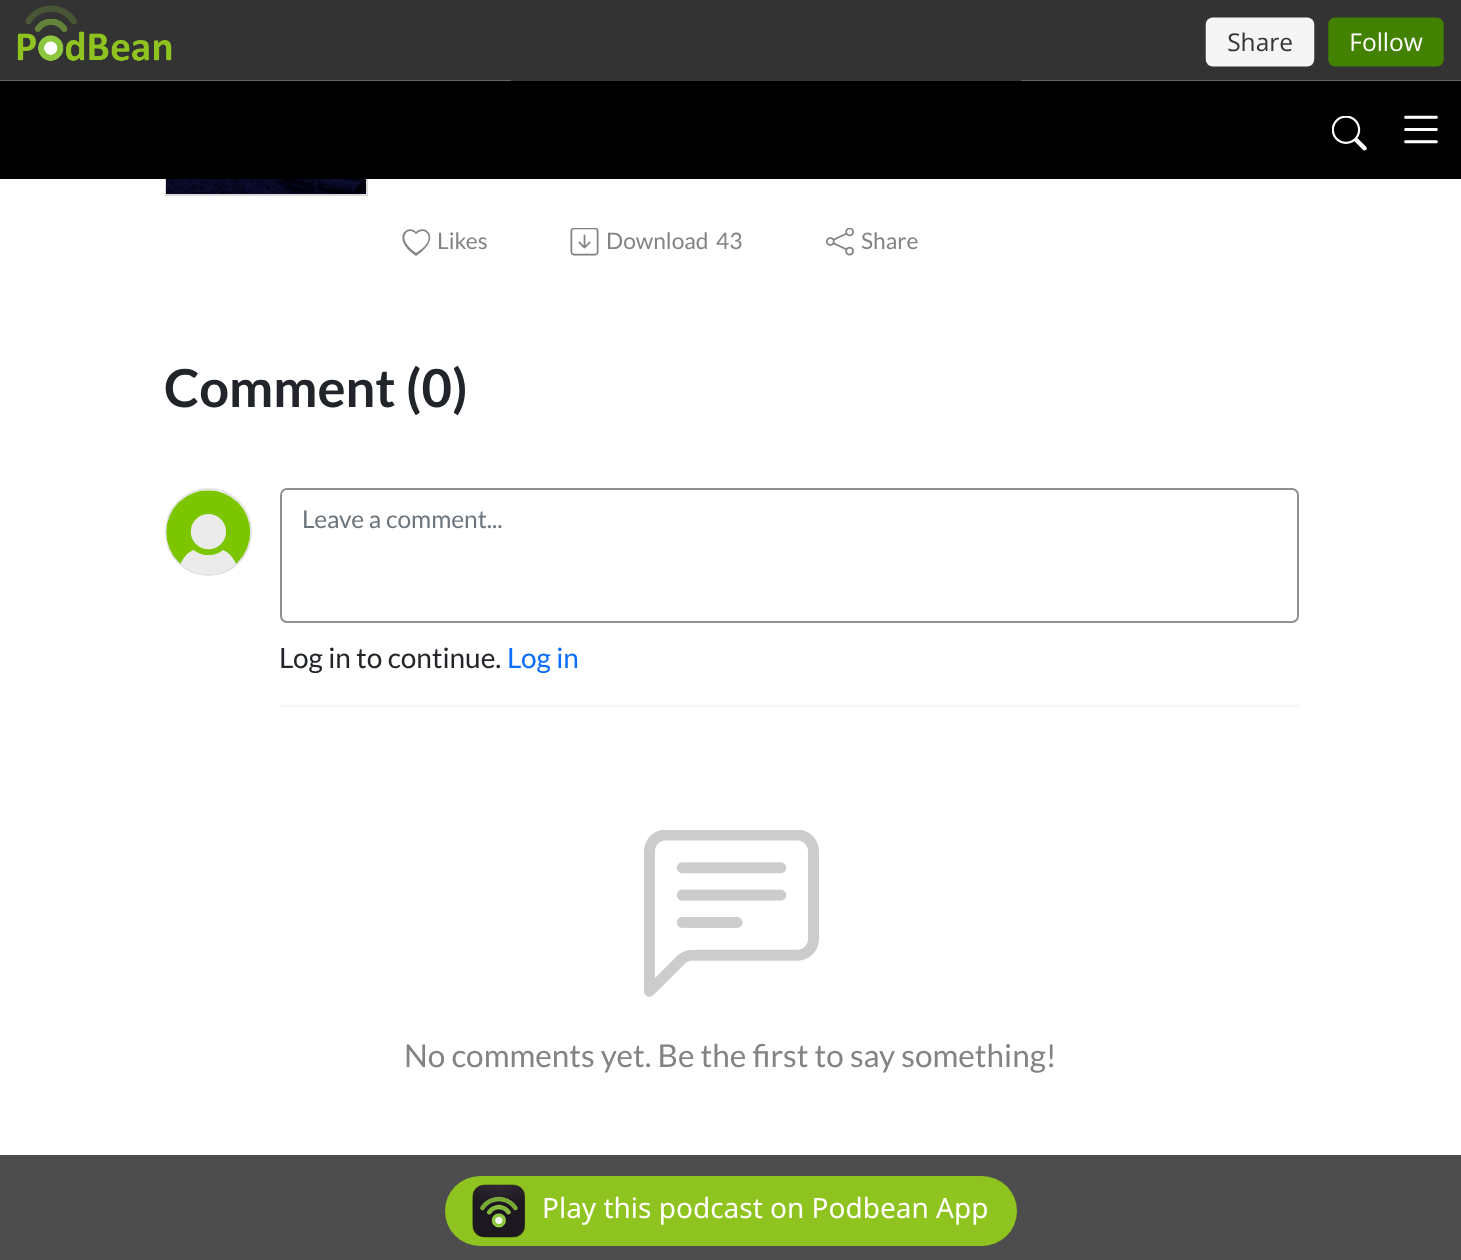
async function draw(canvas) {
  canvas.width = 1461;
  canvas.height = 1260;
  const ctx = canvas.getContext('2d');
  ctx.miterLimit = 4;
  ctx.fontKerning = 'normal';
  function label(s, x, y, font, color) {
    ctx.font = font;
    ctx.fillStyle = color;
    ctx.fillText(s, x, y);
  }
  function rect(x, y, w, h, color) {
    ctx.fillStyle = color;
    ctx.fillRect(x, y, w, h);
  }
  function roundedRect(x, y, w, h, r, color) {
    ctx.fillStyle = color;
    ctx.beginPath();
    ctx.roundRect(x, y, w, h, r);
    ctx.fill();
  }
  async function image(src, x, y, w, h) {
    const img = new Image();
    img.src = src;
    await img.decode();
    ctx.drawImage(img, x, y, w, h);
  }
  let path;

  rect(0, 0, 1461, 1260, '#fff');
  ctx.strokeStyle = '#dadada';
  ctx.lineWidth = 2;
  ctx.strokeRect(166, -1, 201, 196);
  rect(0, 0, 1461, 5, '#333');
  await image('assets/img1.png', 0, 5, 1461, 76);
  rect(0, 81, 1461, 98, '#000');
  await image('assets/img2.png', 1332, 116, 35, 35);
  await image('assets/img3.png', 1404, 115, 34, 29);
  await image('assets/img4.png', 166, 179, 200, 15);
  ctx.fillStyle = '#838383';
  path = new Path2D('M416 234C410 227 402 233 405 241C407 246 412 250 416 253C421 250 426 246 428 241C431 233 423 227 416 234ZM416 256C390 238 408 223 416 232C425 223 443 238 416 256Z');
  ctx.fill(path);
  label('Likes', 437, 249, '22.75px Lato', '#838383');
  await image('assets/img5.png', 570, 228, 29, 28);
  label('Download', 606, 249, '22.75px Lato', '#838383');
  label('43', 716, 249, '22.75px Lato', '#838383');
  await image('assets/img6.png', 826, 228, 28, 28);
  label('Share', 861, 249, '22.75px Lato', '#838383');
  label('Comment (0)', 164, 407, 'bold 52.5px Lato', '#212529');
  ctx.beginPath();
  ctx.roundRect(166, 489, 85, 86, 42.5);
  ctx.strokeStyle = '#e3e3e3';
  ctx.stroke();
  await image('assets/img7.png', 166, 490, 85, 84);
  rect(280, 705, 1019, 2, '#f5f5f5');
  ctx.beginPath();
  ctx.roundRect(281, 489, 1017, 133, 6);
  ctx.strokeStyle = '#909090';
  ctx.stroke();
  label('Leave a comment...', 302, 528, '24.5px Lato', '#6c757d');
  label('Log in to continue.', 279, 668, '28px Lato', '#212529');
  label('Log in', 507, 668, '28px Lato', '#0d6efd');
  await image('assets/img8.png', 644, 830, 175, 167);
  label('No comments yet. Be the first to say something!', 404, 1067, '31.5px Lato', '#838383');
  rect(0, 1155, 1461, 105, '#4d4d4d');
  roundedRect(445, 1176, 572, 70, 35, '#8fc31f');
  await image('assets/img9.png', 472, 1184, 53, 54);
  label('Play this podcast on Podbean App', 542, 1218, '28px Noto Sans', '#fff');
}

draw(document.querySelector('canvas'));
